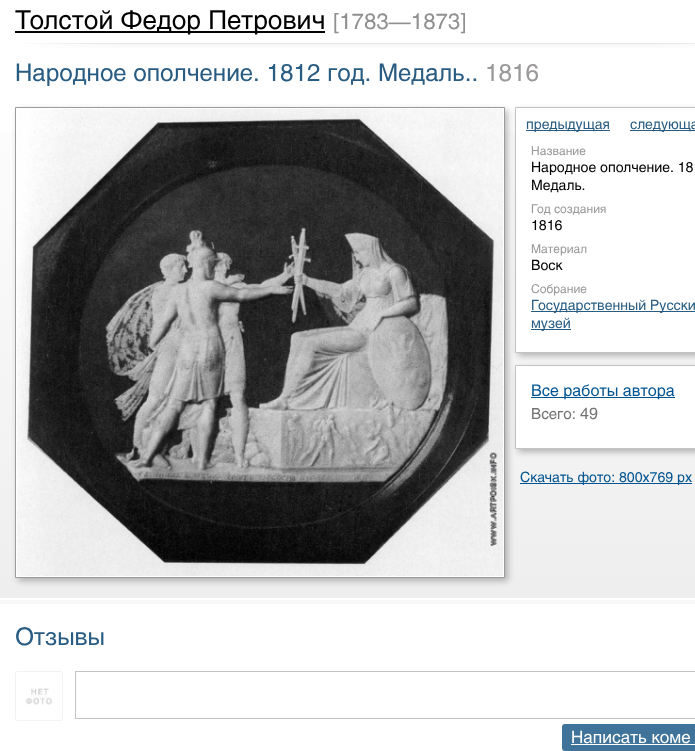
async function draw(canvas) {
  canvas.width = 695;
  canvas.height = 751;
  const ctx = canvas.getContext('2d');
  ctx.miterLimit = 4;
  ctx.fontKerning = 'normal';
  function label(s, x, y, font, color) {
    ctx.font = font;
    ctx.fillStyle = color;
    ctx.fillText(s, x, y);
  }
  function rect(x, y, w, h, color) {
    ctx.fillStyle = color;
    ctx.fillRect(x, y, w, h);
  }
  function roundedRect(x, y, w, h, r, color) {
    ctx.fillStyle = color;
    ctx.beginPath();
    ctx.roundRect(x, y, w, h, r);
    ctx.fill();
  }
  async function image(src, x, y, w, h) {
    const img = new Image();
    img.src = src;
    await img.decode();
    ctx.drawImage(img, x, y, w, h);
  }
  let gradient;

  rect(0, 0, 695, 751, '#fff');
  rect(15, 31, 310, 2, '#000');
  label('Толстой Федор Петрович', 15, 29, '26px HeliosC', '#000');
  label('[1783—1873]', 333, 29, '22px HeliosC', '#918f8f');
  await image('assets/img1.png', 23, 43, 672, 5);
  gradient = ctx.createLinearGradient(500, 50, 500, 598);
  gradient.addColorStop(0, '#fff');
  gradient.addColorStop(1, '#eee');
  ctx.fillStyle = gradient;
  ctx.fillRect(0, 131, 695, 467);
  label('Народное ополчение. 1812 год. Медаль..', 15, 81, '24px HeliosC', '#295c82');
  label('1816', 485, 81, '24px HeliosC', '#9a9898');
  ctx.fillStyle = '#09090a47';
  ctx.filter = 'blur(3px)';
  ctx.beginPath();
  ctx.rect(18, 110, 490, 471);
  ctx.fill();
  ctx.filter = 'none';
  ctx.fillStyle = '#fff';
  ctx.beginPath();
  ctx.rect(15.5, 107.5, 489, 470);
  ctx.fill();
  ctx.strokeStyle = '#9c9b9b';
  ctx.stroke();
  await image('assets/img2.png', 17, 109, 486, 467);
  ctx.fillStyle = '#09090a47';
  ctx.filter = 'blur(3px)';
  ctx.beginPath();
  ctx.rect(518, 110, 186, 246);
  ctx.fill();
  ctx.filter = 'none';
  ctx.fillStyle = '#fff';
  ctx.beginPath();
  ctx.rect(515.5, 107.5, 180, 245);
  ctx.fill();
  ctx.strokeStyle = '#c4c3c3';
  ctx.stroke();
  rect(526, 130, 84, 1, '#295c82');
  label('предыдущая', 526, 129, '14px HeliosC', '#295c82');
  rect(630, 130, 65, 1, '#295c82');
  label('следующа', 630, 129, '14px HeliosC', '#295c82');
  label('Название', 531, 155, '12px HeliosC', '#9a9898');
  label('Народное ополчение. 18', 531, 172, '14px HeliosC', '#000');
  label('Медаль.', 531, 190, '14px HeliosC', '#000');
  label('Год создания', 531, 213, '12px HeliosC', '#9a9898');
  label('1816', 531, 230, '14px HeliosC', '#000');
  label('Материал', 531, 253, '12px HeliosC', '#9a9898');
  label('Воск', 531, 270, '14px HeliosC', '#000');
  label('Собрание', 531, 293, '12px HeliosC', '#9a9898');
  rect(531, 311, 164, 1, '#295c82');
  label('Государственный Русски', 531, 310, '14px HeliosC', '#295c82');
  rect(531, 329, 40, 1, '#295c82');
  label('музей', 531, 328, '14px HeliosC', '#295c82');
  ctx.fillStyle = '#09090a47';
  ctx.filter = 'blur(3px)';
  ctx.beginPath();
  ctx.rect(518, 368, 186, 84);
  ctx.fill();
  ctx.filter = 'none';
  ctx.fillStyle = '#fff';
  ctx.beginPath();
  ctx.rect(515.5, 365.5, 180, 83);
  ctx.fill();
  ctx.stroke();
  rect(531, 397, 144, 1, '#035592');
  label('Все работы автора', 531, 396, '16px HeliosC', '#035592');
  label('Всего:', 531, 419, '15px HeliosC', '#747373');
  label('49', 580, 419, '16px HeliosC', '#747373');
  rect(520, 483, 172, 1, '#035592');
  label('Скачать фото: 800x769 px', 520, 482, '14px HeliosC', '#035592');
  rect(0, 600, 695, 4, '#f9f8f8');
  label('Отзывы', 15, 645, '24px HeliosC', '#295c82');
  await image('assets/img3.png', 15, 671, 48, 50);
  ctx.strokeRect(75.5, 671.5, 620, 47);
  roundedRect(562, 724, 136, 27, 3, '#3f739a');
  label('Написать коме', 571, 743, '17px HeliosC', '#fff');
  rect(571, 744, 124, 1, '#fff');
}

draw(document.querySelector('canvas'));
